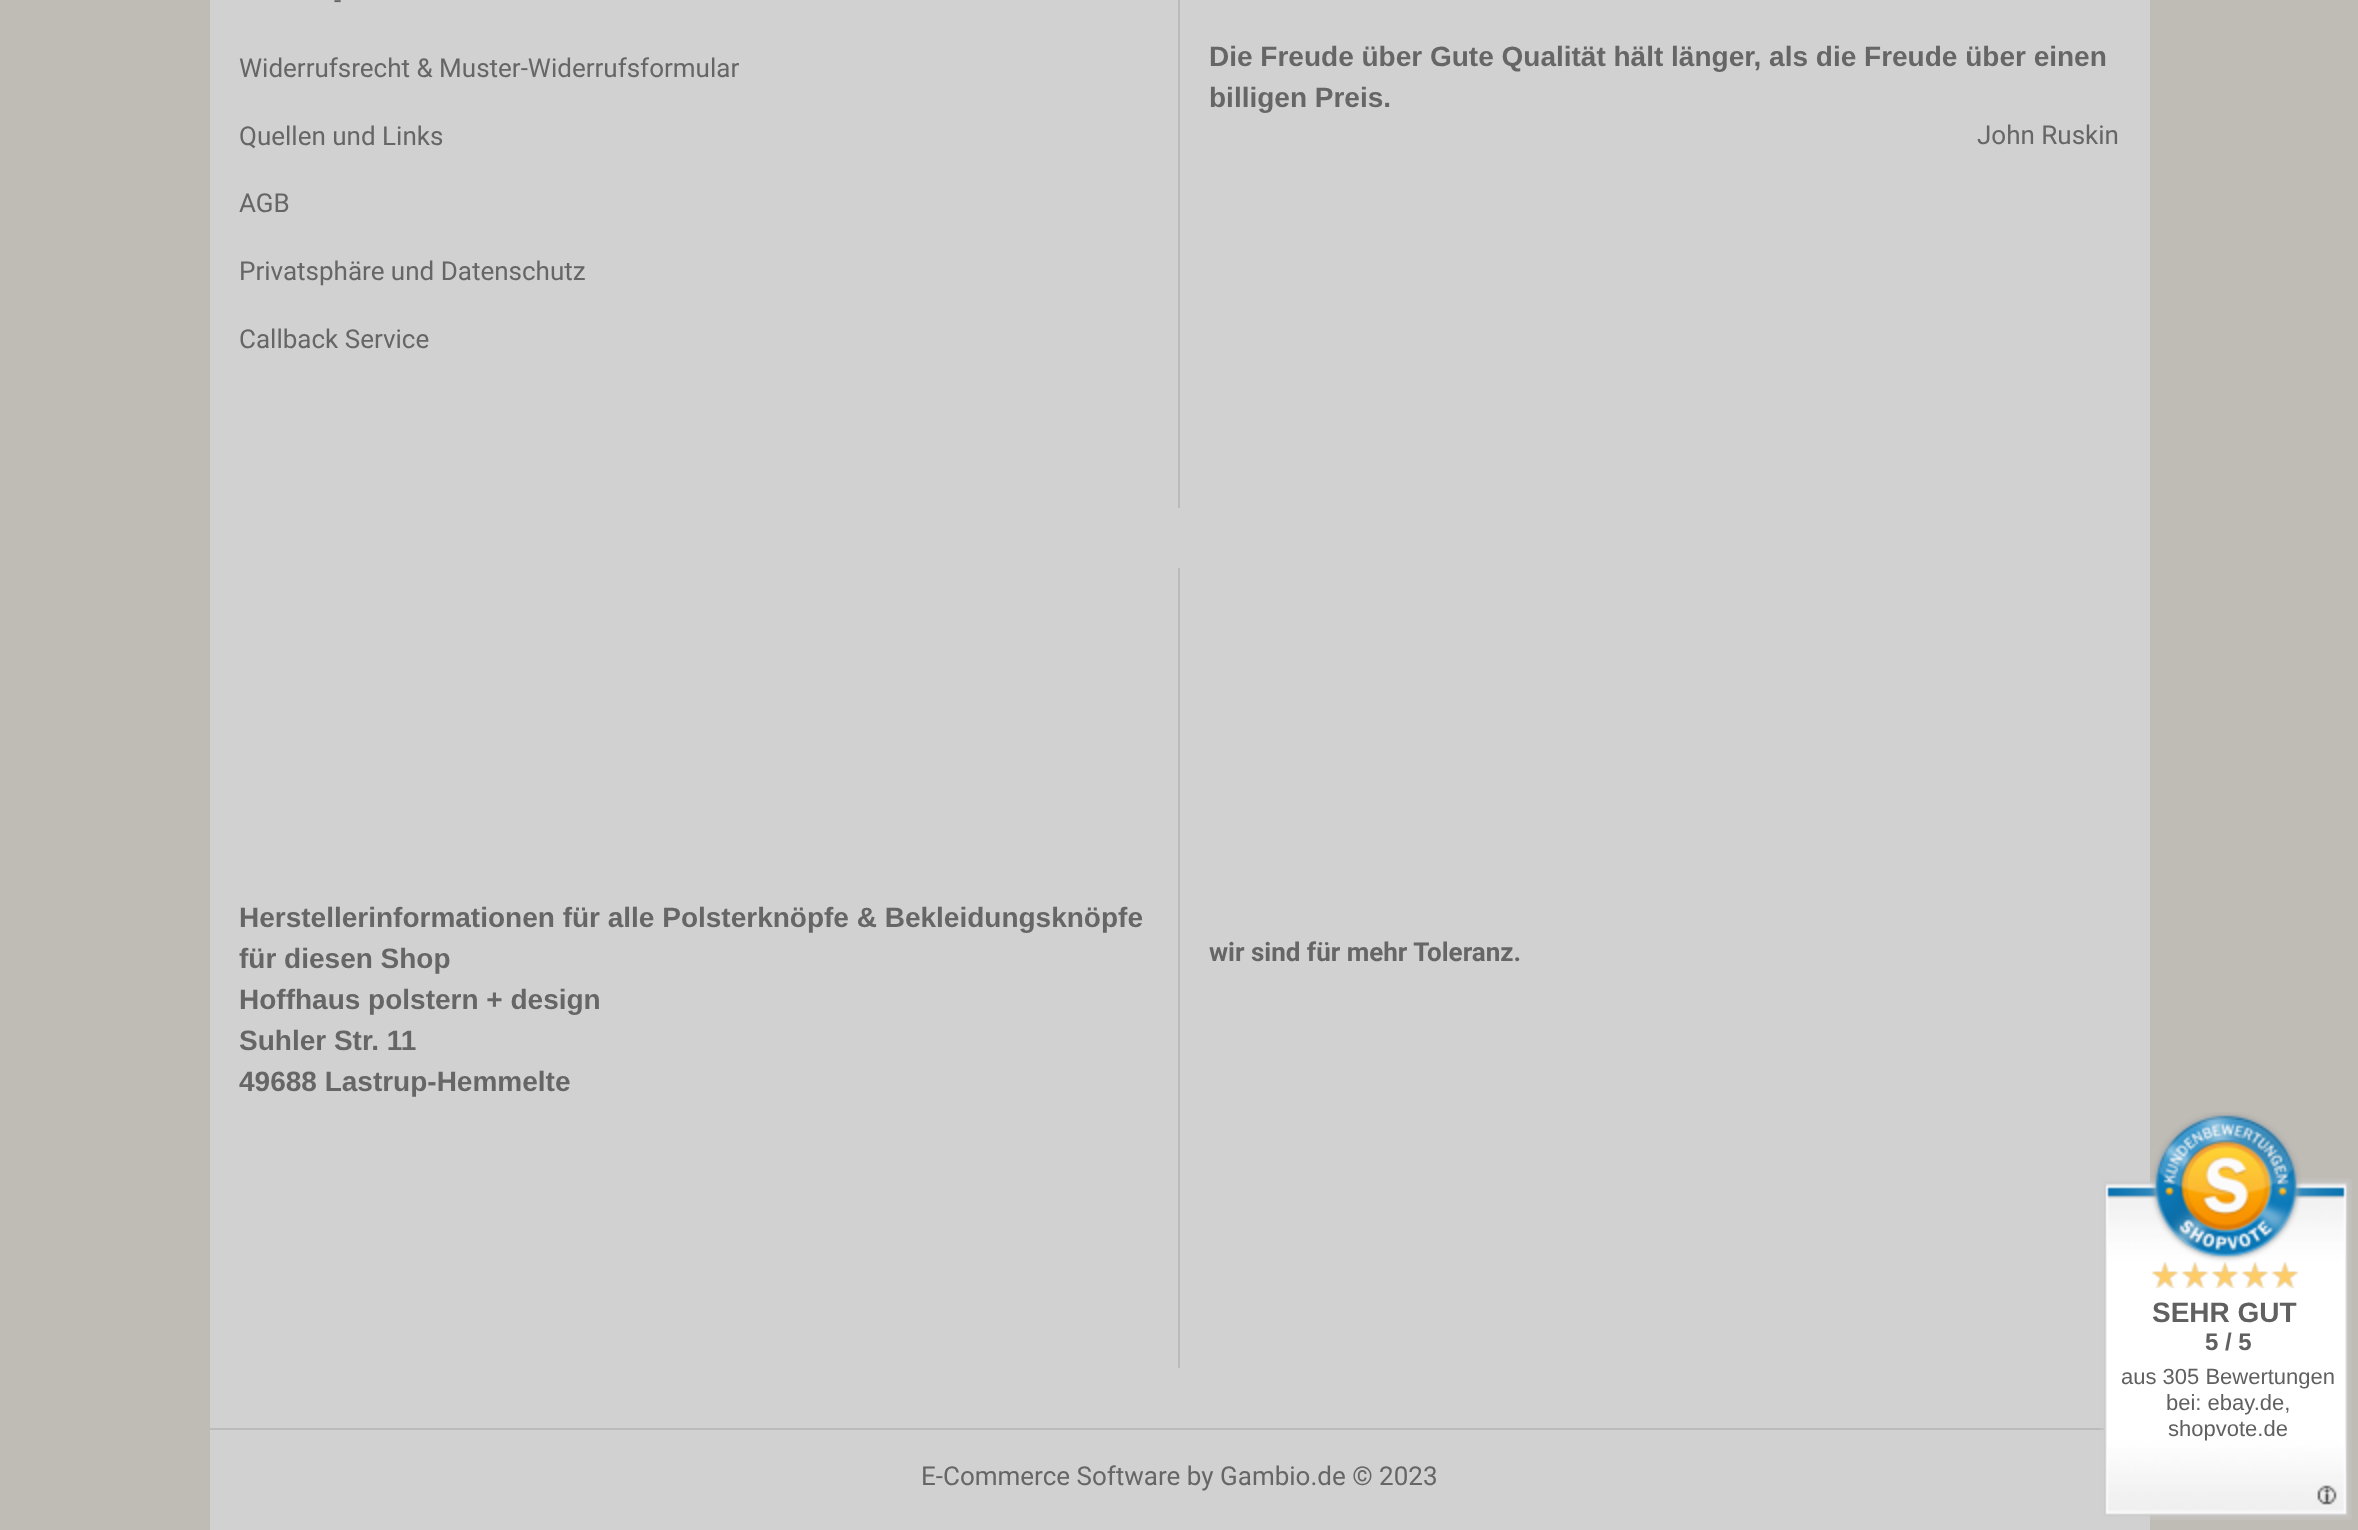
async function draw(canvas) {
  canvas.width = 2358;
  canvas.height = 1530;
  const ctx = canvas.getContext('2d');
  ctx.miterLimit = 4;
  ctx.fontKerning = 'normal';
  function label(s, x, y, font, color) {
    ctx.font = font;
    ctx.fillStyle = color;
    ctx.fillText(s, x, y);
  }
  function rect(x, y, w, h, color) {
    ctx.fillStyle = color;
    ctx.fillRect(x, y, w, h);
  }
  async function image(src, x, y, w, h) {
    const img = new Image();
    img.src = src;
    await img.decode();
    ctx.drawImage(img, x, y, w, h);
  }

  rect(0, 0, 2358, 1530, '#bfbbb5');
  rect(210, 0, 1940, 1530, '#d1d1d1');
  rect(210, 1428, 1895, 2, '#bbb');
  rect(1178, 0, 2, 508, '#bbb');
  label('-', 334, 9, '26px Roboto', '#666');
  label('Widerrufsrecht & Muster-Widerrufsformular', 239, 77, '26px Roboto', '#666');
  label('Quellen und Links', 239, 145, '26px Roboto', '#666');
  label('AGB', 239, 212, '26px Roboto', '#666');
  label('Privatsphäre und Datenschutz', 239, 280, '26px Roboto', '#666');
  label('Callback Service', 239, 348, '26px Roboto', '#666');
  label('Die Freude über Gute Qualität hält länger, als die Freude über einen', 1209, 66, 'bold 28px Liberation Sans', '#666');
  label('billigen Preis.', 1209, 107, 'bold 28px Liberation Sans', '#666');
  label('John Ruskin', 1977, 144, '26px Roboto', '#666');
  rect(1178, 568, 2, 800, '#bbb');
  label('Herstellerinformationen für alle Polsterknöpfe & Bekleidungsknöpfe', 239, 927, 'bold 28px Liberation Sans', '#666');
  label('für diesen Shop', 239, 968, 'bold 28px Liberation Sans', '#666');
  label('Hoffhaus polstern + design', 239, 1009, 'bold 28px Liberation Sans', '#666');
  label('Suhler Str. 11', 239, 1050, 'bold 28px Liberation Sans', '#666');
  label('49688 Lastrup-Hemmelte', 239, 1091, 'bold 28px Liberation Sans', '#666');
  label('wir sind für mehr Toleranz.', 1209, 961, 'bold 26px Roboto', '#666');
  label('E-Commerce Software by Gambio.de © 2023', 921, 1485, '26px Roboto', '#666');
  await image('assets/img1.png', 2100, 1112, 252, 408);
  await image('assets/img2.png', 2152, 1262, 146, 26);
  label('SEHR GUT', 2152, 1322, 'bold 28px Liberation Sans', '#606060');
  label('5 / 5', 2205, 1350, 'bold 24px Liberation Sans', '#606060');
  label('aus 305 Bewertungen', 2121, 1384, '22px Liberation Sans', '#606060');
  label('bei: ebay.de,', 2166, 1410, '22px Liberation Sans', '#606060');
  label('shopvote.de', 2168, 1436, '22px Liberation Sans', '#606060');
}

draw(document.querySelector('canvas'));
